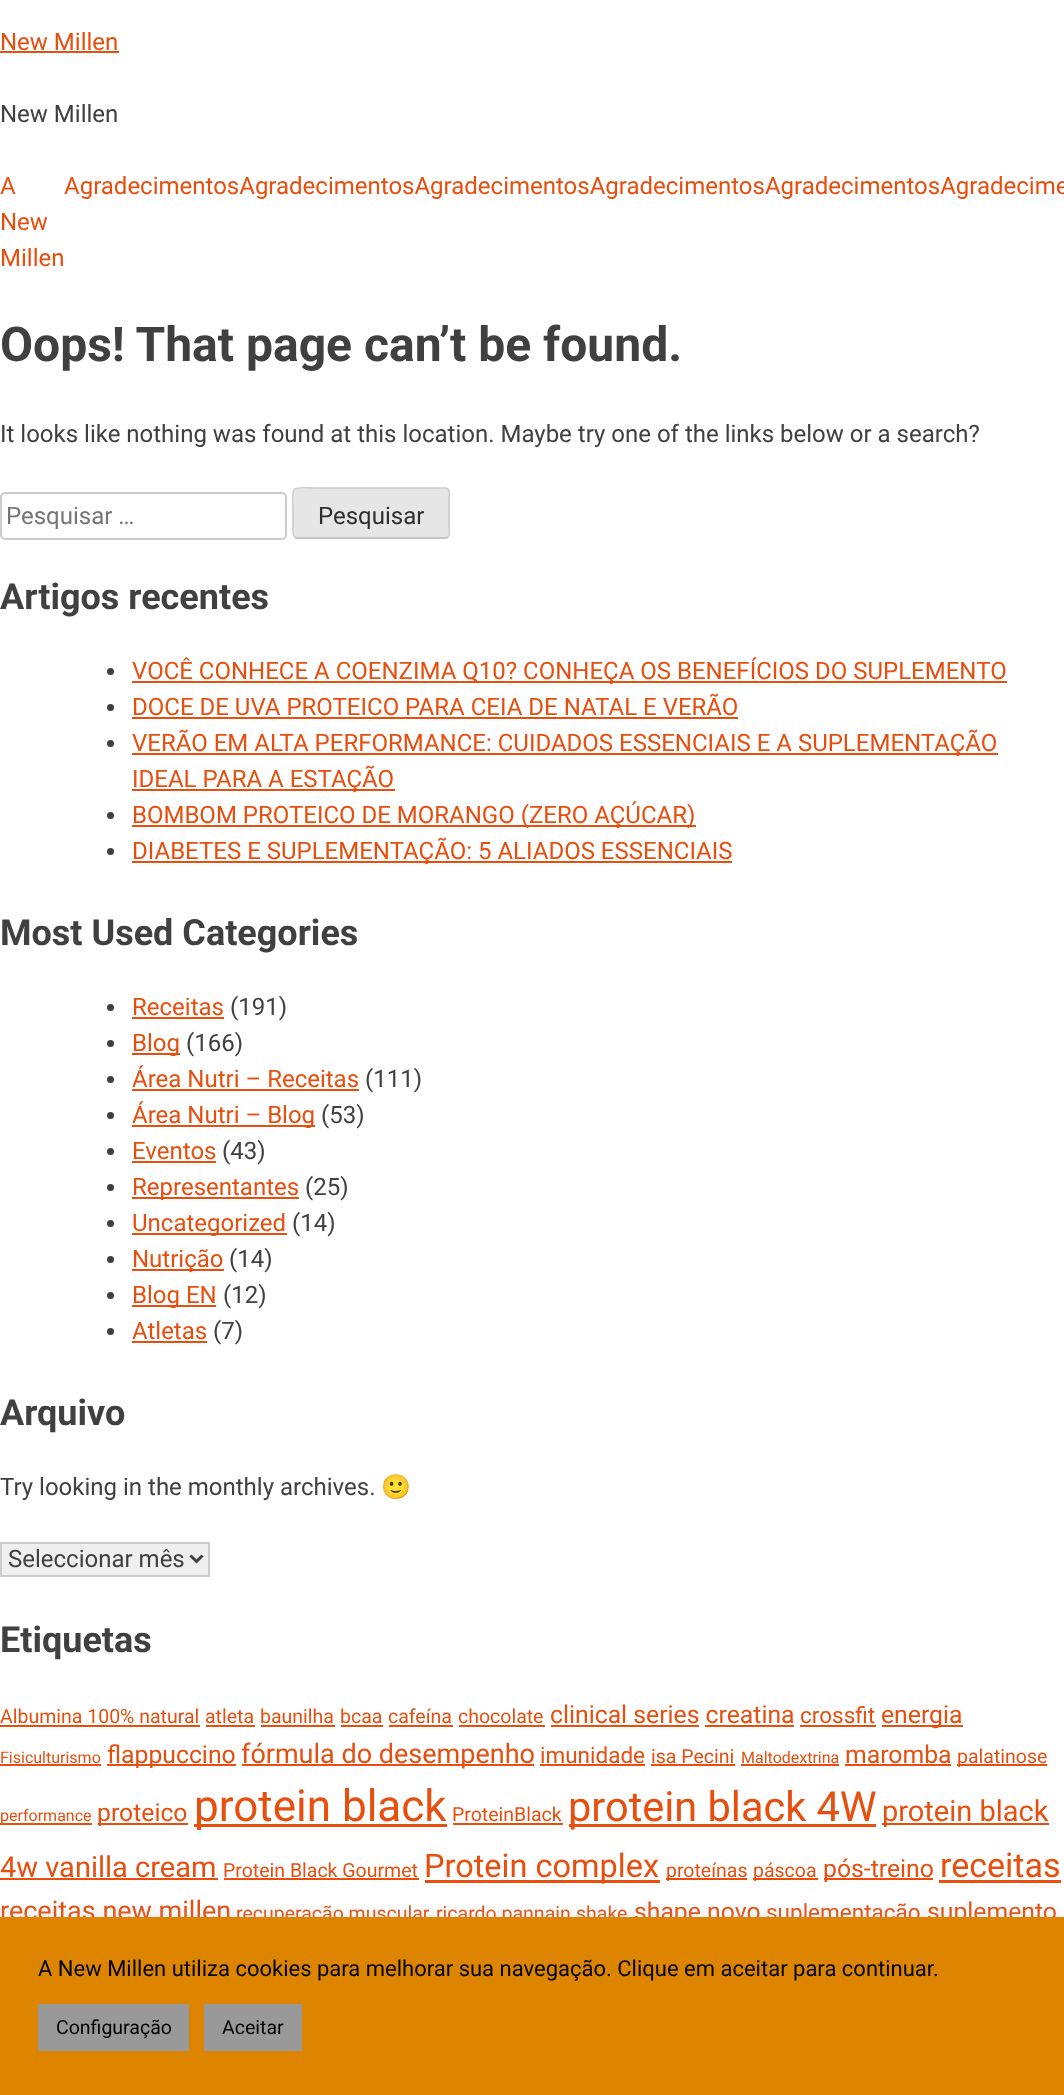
async function draw(canvas) {
  canvas.width = 1064;
  canvas.height = 2095;
  const ctx = canvas.getContext('2d');
  ctx.miterLimit = 4;
  ctx.fontKerning = 'normal';
  function label(s, x, y, font, color) {
    ctx.font = font;
    ctx.fillStyle = color;
    ctx.fillText(s, x, y);
  }
  function rect(x, y, w, h, color) {
    ctx.fillStyle = color;
    ctx.fillRect(x, y, w, h);
  }
  function roundedRect(x, y, w, h, r, color) {
    ctx.fillStyle = color;
    ctx.beginPath();
    ctx.roundRect(x, y, w, h, r);
    ctx.fill();
  }
  let path;

  rect(0, 0, 1064, 2095, '#fff');
  label('New Millen', 0, 50, '24px Roboto', '#e84e0e');
  rect(0, 51, 119, 2, '#e84e0e');
  label('New Millen', 0, 122, '24px Roboto', '#404040');
  label('A', 0, 194, '24px Roboto', '#e84e0e');
  label('New', 0, 230, '24px Roboto', '#e84e0e');
  label('Millen', 0, 266, '24px Roboto', '#e84e0e');
  label('AgradecimentosAgradecimentosAgradecimentosAgradecimentosAgradecimentosAgradecime', 64, 194, '24px Roboto', '#e84e0e');
  label('Oops! That page can’t be found.', 0, 361, 'bold 48px Roboto', '#404040');
  label('It looks like nothing was found at this location. Maybe try one of the links below or a search?', 0, 442, '24px Roboto', '#404040');
  ctx.beginPath();
  ctx.roundRect(1, 493, 285, 46, 4);
  ctx.strokeStyle = '#ccc';
  ctx.lineWidth = 2;
  ctx.stroke();
  label('Pesquisar …', 6, 524, '24px Roboto', '#757575');
  roundedRect(293, 488, 157, 51, 5, '#e6e6e6');
  path = new Path2D('M448 536.5C447.5 537.5 446.5 538 445.5 538H297C296 538 295 537.5 294.5 536.5');
  ctx.strokeStyle = '#bbb';
  ctx.lineWidth = 1.5;
  ctx.stroke(path);
  path = new Path2D('M294.5 536.5C292 534.5 293 528.5 293 527V513C293 482 288 488 322 488H445.5C451 488.5 449 496.5 449 499V527C449 528.5 450.5 534.5 448 536.5');
  ctx.strokeStyle = '#ccc';
  ctx.stroke(path);
  label('Pesquisar', 318, 524, '24px Roboto', '#2e2e2e');
  label('Artigos recentes', 0, 609, 'bold 36px Roboto', '#404040');
  ctx.beginPath();
  ctx.arc(110.5, 671.5, 3.5, 0, 2 * Math.PI);
  ctx.fill();
  rect(132, 681, 875, 2, '#e84e0e');
  label('VOCÊ CONHECE A COENZIMA Q10? CONHEÇA OS BENEFÍCIOS DO SUPLEMENTO', 132, 679, '24px Roboto', '#e84e0e');
  ctx.fillStyle = '#404040';
  ctx.beginPath();
  ctx.arc(110.5, 707.5, 3.5, 0, 2 * Math.PI);
  ctx.fill();
  label('DOCE DE UVA PROTEICO PARA CEIA DE NATAL E VERÃO', 132, 715, '24px Roboto', '#e84e0e');
  rect(132, 717, 606, 2, '#e84e0e');
  ctx.fillStyle = '#404040';
  ctx.beginPath();
  ctx.arc(110.5, 743.5, 3.5, 0, 2 * Math.PI);
  ctx.fill();
  rect(132, 753, 866, 2, '#e84e0e');
  label('VERÃO EM ALTA PERFORMANCE: CUIDADOS ESSENCIAIS E A SUPLEMENTAÇÃO', 132, 751, '24px Roboto', '#e84e0e');
  rect(132, 789, 263, 2, '#e84e0e');
  label('IDEAL PARA A ESTAÇÃO', 132, 787, '24px Roboto', '#e84e0e');
  ctx.fillStyle = '#404040';
  ctx.beginPath();
  ctx.arc(110.5, 815.5, 3.5, 0, 2 * Math.PI);
  ctx.fill();
  rect(132, 825, 564, 2, '#e84e0e');
  label('BOMBOM PROTEICO DE MORANGO (ZERO AÇÚCAR)', 132, 823, '24px Roboto', '#e84e0e');
  ctx.fillStyle = '#404040';
  ctx.beginPath();
  ctx.arc(110.5, 851.5, 3.5, 0, 2 * Math.PI);
  ctx.fill();
  rect(132, 861, 600, 2, '#e84e0e');
  label('DIABETES E SUPLEMENTAÇÃO: 5 ALIADOS ESSENCIAIS', 132, 859, '24px Roboto', '#e84e0e');
  label('Most Used Categories', 0, 945, 'bold 36px Roboto', '#404040');
  ctx.beginPath();
  ctx.arc(110.5, 1007.5, 3.5, 0, 2 * Math.PI);
  ctx.fill();
  label('Receitas', 132, 1015, '24px Roboto', '#e84e0e');
  rect(132, 1017, 92, 2, '#e84e0e');
  label('(191)', 230, 1015, '24px Roboto', '#404040');
  ctx.beginPath();
  ctx.arc(110.5, 1043.5, 3.5, 0, 2 * Math.PI);
  ctx.fill();
  rect(132, 1053, 48, 2, '#e84e0e');
  label('Blog', 132, 1051, '24px Roboto', '#e84e0e');
  label('(166)', 186, 1051, '24px Roboto', '#404040');
  ctx.beginPath();
  ctx.arc(110.5, 1079.5, 3.5, 0, 2 * Math.PI);
  ctx.fill();
  label('Área Nutri – Receitas', 132, 1087, '24px Roboto', '#e84e0e');
  rect(132, 1089, 227, 2, '#e84e0e');
  label('(111)', 365, 1087, '24px Roboto', '#404040');
  ctx.beginPath();
  ctx.arc(110.5, 1115.5, 3.5, 0, 2 * Math.PI);
  ctx.fill();
  rect(132, 1125, 183, 2, '#e84e0e');
  label('Área Nutri – Blog', 132, 1123, '24px Roboto', '#e84e0e');
  label('(53)', 321, 1123, '24px Roboto', '#404040');
  ctx.beginPath();
  ctx.arc(110.5, 1151.5, 3.5, 0, 2 * Math.PI);
  ctx.fill();
  label('Eventos', 132, 1159, '24px Roboto', '#e84e0e');
  rect(132, 1161, 84, 2, '#e84e0e');
  label('(43)', 222, 1159, '24px Roboto', '#404040');
  ctx.beginPath();
  ctx.arc(110.5, 1187.5, 3.5, 0, 2 * Math.PI);
  ctx.fill();
  rect(132, 1197, 167, 2, '#e84e0e');
  label('Representantes', 132, 1195, '24px Roboto', '#e84e0e');
  label('(25)', 305, 1195, '24px Roboto', '#404040');
  ctx.beginPath();
  ctx.arc(110.5, 1223.5, 3.5, 0, 2 * Math.PI);
  ctx.fill();
  rect(132, 1233, 155, 2, '#e84e0e');
  label('Uncategorized', 132, 1231, '24px Roboto', '#e84e0e');
  label('(14)', 292, 1231, '24px Roboto', '#404040');
  ctx.beginPath();
  ctx.arc(110.5, 1259.5, 3.5, 0, 2 * Math.PI);
  ctx.fill();
  rect(132, 1269, 92, 2, '#e84e0e');
  label('Nutrição', 132, 1267, '24px Roboto', '#e84e0e');
  label('(14)', 229, 1267, '24px Roboto', '#404040');
  ctx.beginPath();
  ctx.arc(110.5, 1295.5, 3.5, 0, 2 * Math.PI);
  ctx.fill();
  rect(132, 1305, 84, 2, '#e84e0e');
  label('Blog EN', 132, 1303, '24px Roboto', '#e84e0e');
  label('(12)', 223, 1303, '24px Roboto', '#404040');
  ctx.beginPath();
  ctx.arc(110.5, 1331.5, 3.5, 0, 2 * Math.PI);
  ctx.fill();
  label('Atletas', 132, 1339, '24px Roboto', '#e84e0e');
  rect(132, 1341, 75, 2, '#e84e0e');
  label('(7)', 213, 1339, '24px Roboto', '#404040');
  label('Arquivo', 0, 1425, 'bold 36px Roboto', '#404040');
  label('Try looking in the monthly archives.', 0, 1495, '24px Roboto', '#404040');
  label('🙂', 381, 1495, '24px Noto Color Emoji', '#404040');
  ctx.fillStyle = '#efefef';
  ctx.beginPath();
  ctx.rect(1, 1543, 208, 33);
  ctx.fill();
  ctx.lineWidth = 2;
  ctx.stroke();
  path = new Path2D('M190.5 1555.5L196.5 1561.5L202.5 1555.5');
  ctx.strokeStyle = '#404040';
  ctx.lineWidth = 3;
  ctx.stroke(path);
  label('Seleccionar mês', 8, 1567, '24px Roboto', '#404040');
  label('Etiquetas', 0, 1652, 'bold 36px Roboto', '#404040');
  label('Albumina 100% natural', 0, 1723, '19.5px Roboto', '#e84e0e');
  rect(0, 1725, 200, 2, '#e84e0e');
  label('atleta', 205, 1723, '19.5px Roboto', '#e84e0e');
  rect(206, 1725, 49, 2, '#e84e0e');
  label('baunilha', 260, 1723, '19.5px Roboto', '#e84e0e');
  rect(261, 1725, 74, 2, '#e84e0e');
  label('bcaa', 340, 1723, '19.5px Roboto', '#e84e0e');
  rect(341, 1725, 42, 2, '#e84e0e');
  label('cafeína', 388, 1723, '19.5px Roboto', '#e84e0e');
  rect(389, 1725, 64, 2, '#e84e0e');
  label('chocolate', 458, 1723, '19.5px Roboto', '#e84e0e');
  rect(459, 1725, 86, 2, '#e84e0e');
  label('clinical series creatina', 550, 1723, '24.75px Roboto', '#e84e0e');
  rect(551, 1725, 148, 2, '#e84e0e');
  label('crossfit', 800, 1723, '22.5px Roboto', '#e84e0e');
  rect(800, 1725, 76, 2, '#e84e0e');
  rect(882, 1725, 81, 2, '#e84e0e');
  label('energia', 881, 1723, '24.75px Roboto', '#e84e0e');
  rect(705, 1725, 89, 2, '#e84e0e');
  label('Fisiculturismo', 0, 1763, '16px Roboto', '#e84e0e');
  rect(0, 1764, 101, 2, '#e84e0e');
  rect(107, 1764, 129, 2, '#e84e0e');
  label('flappuccino', 107, 1763, '24.75px Roboto', '#e84e0e');
  rect(242, 1764, 292, 2, '#e84e0e');
  label('fórmula do desempenho', 241, 1763, '27px Roboto', '#e84e0e');
  label('imunidade', 540, 1763, '22.5px Roboto', '#e84e0e');
  rect(540, 1764, 105, 2, '#e84e0e');
  label('isa Pecini', 651, 1763, '19.5px Roboto', '#e84e0e');
  rect(651, 1764, 84, 2, '#e84e0e');
  label('Maltodextrina', 741, 1763, '16px Roboto', '#e84e0e');
  rect(741, 1764, 98, 2, '#e84e0e');
  label('maromba', 845, 1763, '24.75px Roboto', '#e84e0e');
  rect(845, 1764, 106, 2, '#e84e0e');
  rect(957, 1764, 90, 2, '#e84e0e');
  label('palatinose', 957, 1763, '19.5px Roboto', '#e84e0e');
  rect(0, 1823, 92, 2, '#e84e0e');
  label('performance', 0, 1821, '16px Roboto', '#e84e0e');
  rect(98, 1823, 90, 2, '#e84e0e');
  label('proteico', 97, 1821, '24.75px Roboto', '#e84e0e');
  rect(194, 1824, 253, 3, '#e84e0e');
  label('protein black', 194, 1821, '44px Roboto', '#e84e0e');
  label('ProteinBlack', 452, 1821, '19.5px Roboto', '#e84e0e');
  rect(453, 1823, 110, 2, '#e84e0e');
  rect(569, 1824, 307, 3, '#e84e0e');
  label('protein black 4W', 568, 1821, '41.5px Roboto', '#e84e0e');
  rect(882, 1823, 167, 2, '#e84e0e');
  label('protein black', 882, 1821, '29px Roboto', '#e84e0e');
  label('4w vanilla cream', 0, 1877, '29px Roboto', '#e84e0e');
  rect(0, 1878, 218, 2, '#e84e0e');
  label('Protein Black Gourmet', 223, 1877, '19.5px Roboto', '#e84e0e');
  rect(224, 1878, 195, 2, '#e84e0e');
  rect(425, 1880, 235, 3, '#e84e0e');
  label('Protein complex', 424, 1877, '32.5px Roboto', '#e84e0e');
  rect(666, 1878, 81, 2, '#e84e0e');
  label('proteínas', 666, 1877, '19.5px Roboto', '#e84e0e');
  rect(753, 1878, 65, 2, '#e84e0e');
  label('páscoa', 753, 1877, '19.5px Roboto', '#e84e0e');
  rect(824, 1878, 109, 2, '#e84e0e');
  label('pós-treino', 823, 1877, '24.75px Roboto', '#e84e0e');
  label('receitas', 940, 1877, '34px Roboto', '#e84e0e');
  rect(939, 1880, 122, 3, '#e84e0e');
  label('receitas new millen', 0, 1920, '27px Roboto', '#e84e0e');
  label('recuperação muscular', 236, 1920, '19.5px Roboto', '#e84e0e');
  label('ricardo pannain', 436, 1920, '19.5px Roboto', '#e84e0e');
  label('shake', 576, 1920, '19.5px Roboto', '#e84e0e');
  label('shape novo', 634, 1920, '24.75px Roboto', '#e84e0e');
  label('suplementação', 766, 1920, '22.5px Roboto', '#e84e0e');
  label('suplemento', 927, 1920, '24.75px Roboto', '#e84e0e');
  ctx.fillStyle = '#acabab4d';
  ctx.filter = 'blur(7.5px)';
  ctx.beginPath();
  ctx.rect(0, 1916, 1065, 178);
  ctx.fill();
  ctx.filter = 'none';
  rect(0, 1917, 1064, 178, '#dd8500');
  label('A New Millen utiliza cookies para melhorar sua navegação. Clique em aceitar para continuar.', 38, 1976, '22px Roboto', '#000');
  rect(38, 2004, 151, 47, '#999');
  label('Configuração', 56, 2034, '19.5px Roboto', '#000');
  rect(204, 2004, 98, 47, '#999');
  label('Aceitar', 222, 2034, '19.5px Roboto', '#000');
}

draw(document.querySelector('canvas'));
